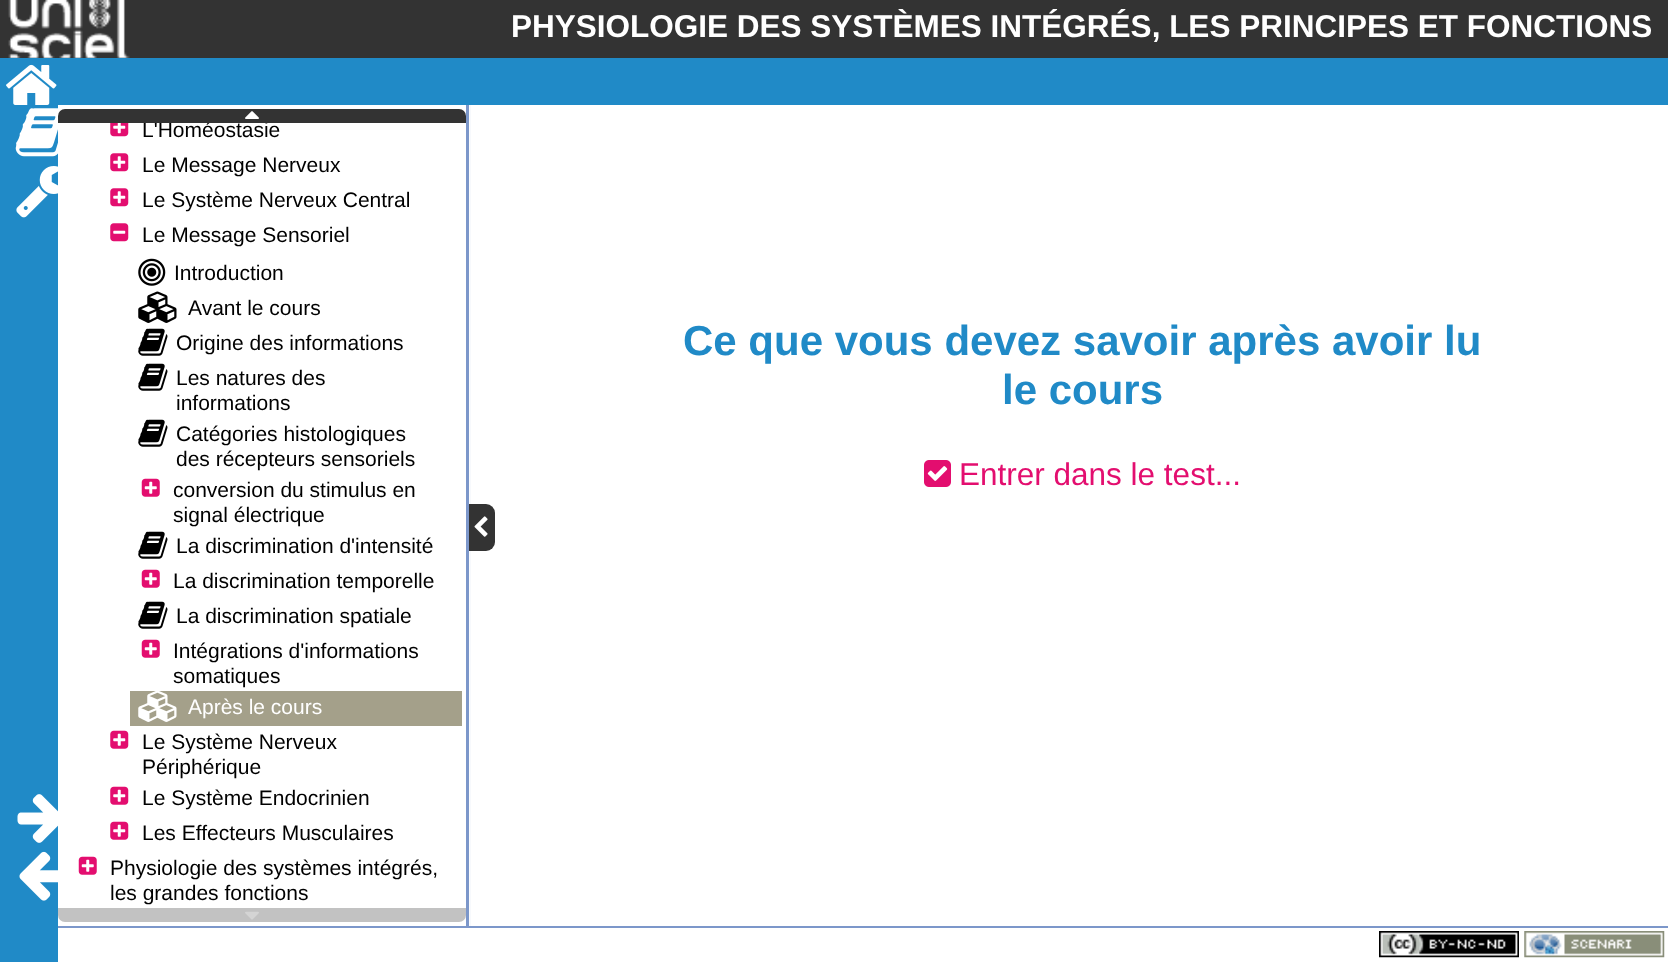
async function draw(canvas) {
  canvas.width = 1668;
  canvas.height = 962;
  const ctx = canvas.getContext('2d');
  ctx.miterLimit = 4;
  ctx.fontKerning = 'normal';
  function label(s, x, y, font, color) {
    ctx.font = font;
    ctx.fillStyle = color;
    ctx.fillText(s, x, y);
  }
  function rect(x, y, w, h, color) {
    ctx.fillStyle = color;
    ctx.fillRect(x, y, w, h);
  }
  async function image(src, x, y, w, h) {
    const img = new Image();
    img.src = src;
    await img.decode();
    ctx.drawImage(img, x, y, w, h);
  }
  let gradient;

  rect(0, 0, 1668, 962, '#208ac7');
  rect(0, 0, 1668, 58, '#333');
  await image('assets/img1.png', 8, 0, 122, 58);
  label('PHYSIOLOGIE DES SYSTÈMES INTÉGRÉS, LES PRINCIPES ET FONCTIONS', 511, 37, 'bold 31.5px Liberation Sans', '#fff');
  await image('assets/img2.png', 6, 64, 51, 41);
  rect(58, 928, 1610, 34, '#fff');
  rect(58, 926, 1610, 2, '#7c97ca');
  await image('assets/img3.png', 1379, 931, 140, 27);
  await image('assets/img4.png', 1524, 931, 141, 27);
  await image('assets/img5.png', 15, 108, 43, 49);
  await image('assets/img6.png', 16, 166, 42, 52);
  rect(58, 105, 1610, 821, '#fff');
  rect(466, 105, 5, 821, '#7c97ca');
  ctx.fillStyle = '#333';
  ctx.beginPath();
  ctx.roundRect(58, 109, 408, 14, [7, 7, 0, 0]);
  ctx.fill();
  await image('assets/img7.png', 245, 111, 14, 8);
  await image('assets/img8.png', 110, 123, 19, 14);
  ctx.save();
  ctx.beginPath();
  ctx.rect(58, 123, 404, 785);
  ctx.clip();
  label('L\'Homéostasie', 142, 137, '21px Liberation Sans', '#000');
  ctx.restore();
  await image('assets/img9.png', 110, 153, 19, 19);
  label('Le Message Nerveux', 142, 172, '21px Liberation Sans', '#000');
  await image('assets/img9.png', 110, 188, 19, 19);
  label('Le Système Nerveux Central', 142, 207, '21px Liberation Sans', '#000');
  await image('assets/img10.png', 110, 223, 19, 19);
  label('Le Message Sensoriel', 142, 242, '21px Liberation Sans', '#000');
  await image('assets/img11.png', 138, 258, 28, 28);
  label('Introduction', 174, 280, '21px Liberation Sans', '#000');
  await image('assets/img12.png', 138, 291, 39, 32);
  label('Avant le cours', 188, 315, '21px Liberation Sans', '#000');
  await image('assets/img13.png', 138, 328, 30, 28);
  label('Origine des informations', 176, 350, '21px Liberation Sans', '#000');
  await image('assets/img13.png', 138, 363, 30, 28);
  label('Les natures des', 176, 385, '21px Liberation Sans', '#000');
  label('informations', 176, 410, '21px Liberation Sans', '#000');
  await image('assets/img13.png', 138, 419, 30, 28);
  label('Catégories histologiques', 176, 441, '21px Liberation Sans', '#000');
  label('des récepteurs sensoriels', 176, 466, '21px Liberation Sans', '#000');
  await image('assets/img14.png', 141, 478, 19, 19);
  label('conversion du stimulus en', 173, 497, '21px Liberation Sans', '#000');
  label('signal électrique', 173, 522, '21px Liberation Sans', '#000');
  await image('assets/img13.png', 138, 531, 30, 28);
  label('La discrimination d\'intensité', 176, 553, '21px Liberation Sans', '#000');
  await image('assets/img15.png', 141, 569, 19, 19);
  label('La discrimination temporelle', 173, 588, '21px Liberation Sans', '#000');
  await image('assets/img13.png', 138, 601, 30, 28);
  label('La discrimination spatiale', 176, 623, '21px Liberation Sans', '#000');
  await image('assets/img15.png', 141, 639, 19, 19);
  label('Intégrations d\'informations', 173, 658, '21px Liberation Sans', '#000');
  label('somatiques', 173, 683, '21px Liberation Sans', '#000');
  rect(130, 691, 332, 35, '#a4a08a');
  await image('assets/img16.png', 138, 691, 39, 31);
  label('Après le cours', 188, 714, '21px Liberation Sans', '#fff');
  await image('assets/img17.png', 110, 730, 19, 19);
  label('Le Système Nerveux', 142, 749, '21px Liberation Sans', '#000');
  label('Périphérique', 142, 774, '21px Liberation Sans', '#000');
  await image('assets/img17.png', 110, 786, 19, 19);
  label('Le Système Endocrinien', 142, 805, '21px Liberation Sans', '#000');
  await image('assets/img17.png', 110, 821, 19, 19);
  label('Les Effecteurs Musculaires', 142, 840, '21px Liberation Sans', '#000');
  await image('assets/img15.png', 78, 856, 19, 19);
  label('Physiologie des systèmes intégrés,', 110, 875, '21px Liberation Sans', '#000');
  label('les grandes fonctions', 110, 900, '21px Liberation Sans', '#000');
  ctx.fillStyle = '#c2c2c2';
  ctx.beginPath();
  ctx.roundRect(58, 908, 408, 14, [0, 0, 7, 7]);
  ctx.fill();
  await image('assets/img18.png', 245, 911, 14, 9);
  gradient = ctx.createLinearGradient(469, 515, 495, 515);
  gradient.addColorStop(0, '#fff');
  gradient.addColorStop(1, '#ffffff00');
  ctx.fillStyle = gradient;
  ctx.fillRect(469, 105, 2, 821);
  ctx.fillStyle = '#333';
  ctx.beginPath();
  ctx.roundRect(469, 504, 26, 47, [0, 9, 9, 0]);
  ctx.fill();
  await image('assets/img19.png', 474, 516, 14, 21);
  label('Ce que vous devez savoir après avoir lu', 683, 355, 'bold 42px Liberation Sans', '#208ac7');
  label('le cours', 1002, 404, 'bold 42px Liberation Sans', '#208ac7');
  await image('assets/img20.png', 924, 460, 27, 27);
  label('Entrer dans le test...', 959, 485, '31.5px Liberation Sans', '#e30e6f');
  await image('assets/img21.png', 17, 794, 41, 49);
  await image('assets/img22.png', 19, 851, 39, 50);
}

draw(document.querySelector('canvas'));
